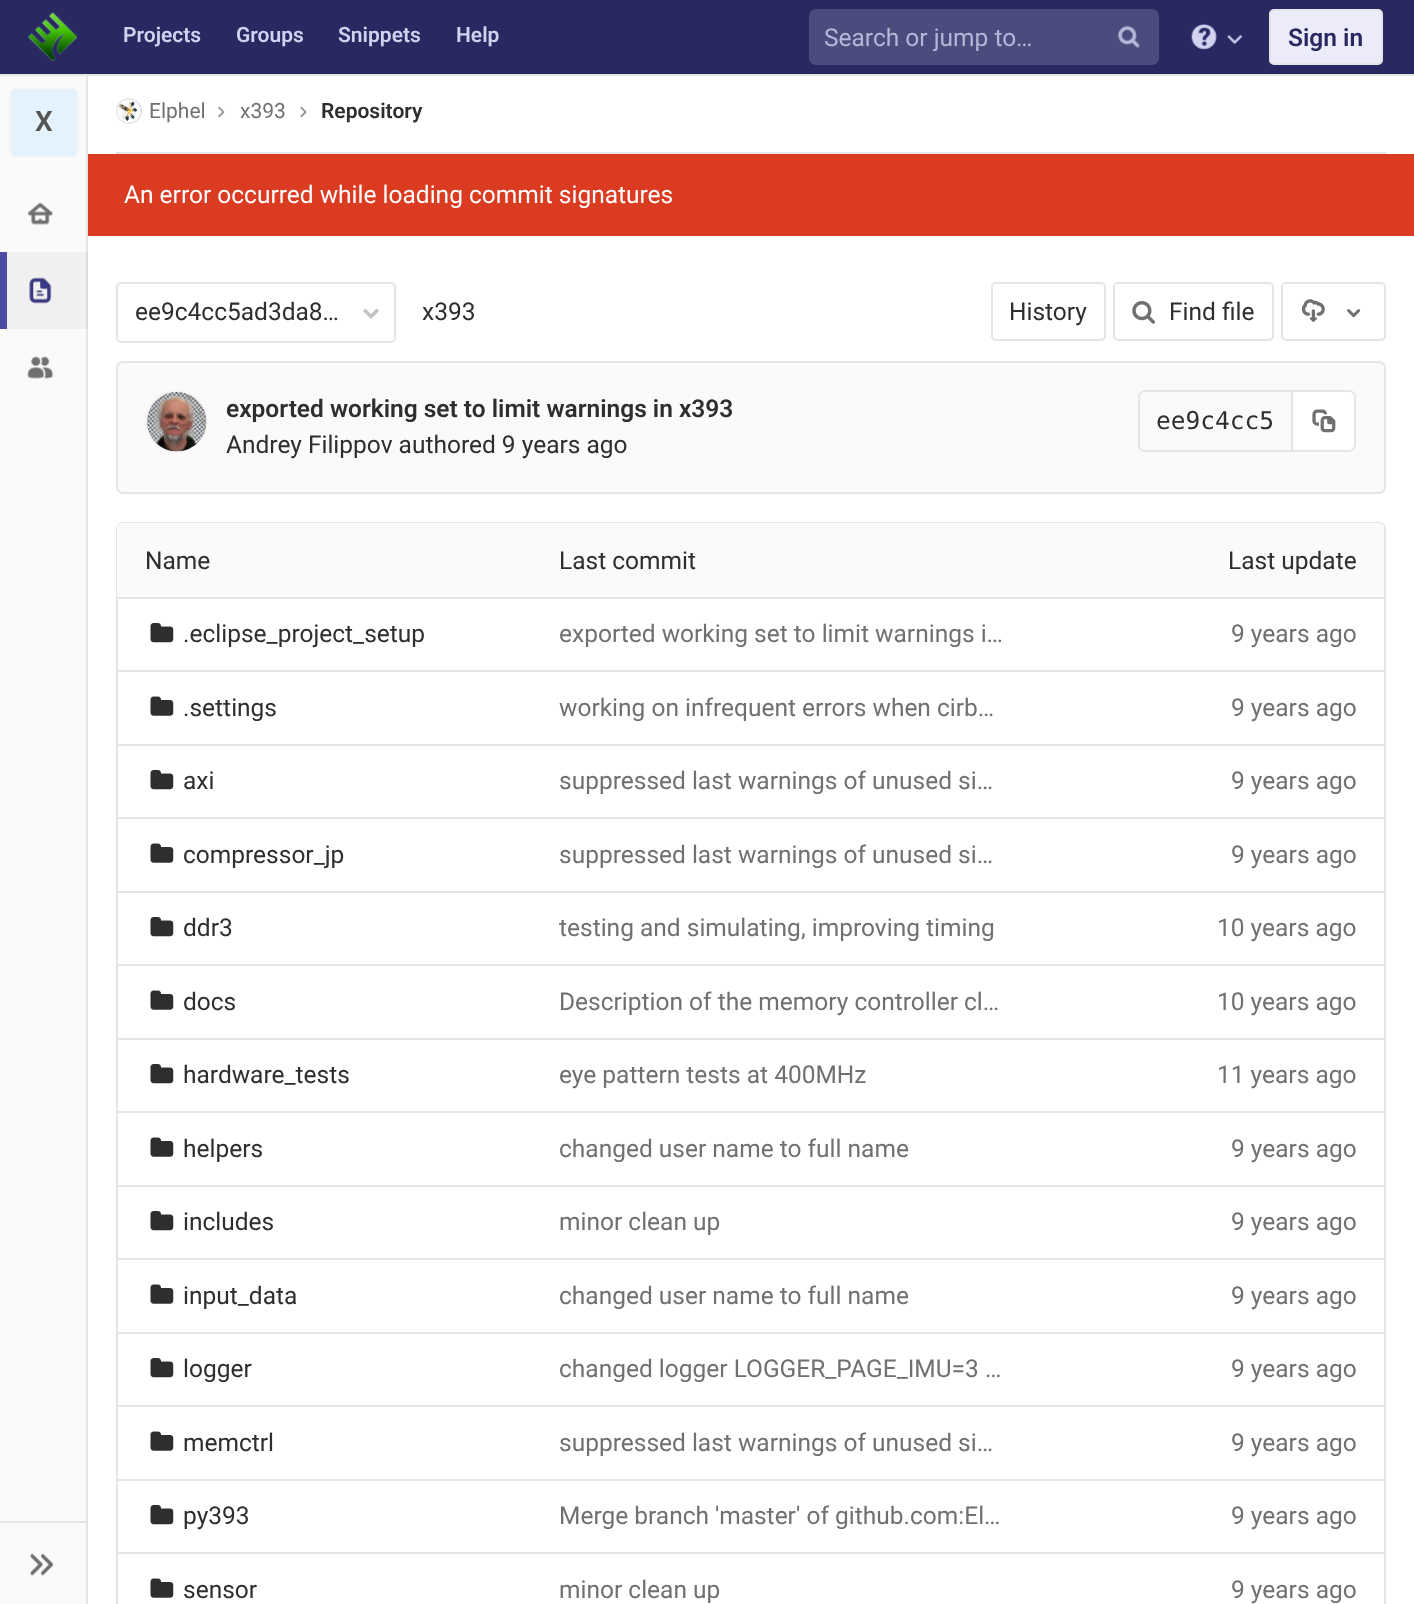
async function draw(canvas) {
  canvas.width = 1414;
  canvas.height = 1604;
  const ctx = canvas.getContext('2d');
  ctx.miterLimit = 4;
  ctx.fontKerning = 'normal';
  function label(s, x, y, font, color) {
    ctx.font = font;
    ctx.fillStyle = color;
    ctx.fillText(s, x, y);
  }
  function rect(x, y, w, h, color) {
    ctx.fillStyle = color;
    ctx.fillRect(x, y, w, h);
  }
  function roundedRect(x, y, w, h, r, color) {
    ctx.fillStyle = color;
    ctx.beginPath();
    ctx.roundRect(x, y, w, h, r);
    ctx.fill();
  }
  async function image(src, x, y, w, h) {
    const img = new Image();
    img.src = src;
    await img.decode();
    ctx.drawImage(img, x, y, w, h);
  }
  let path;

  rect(0, 0, 1414, 1604, '#fff');
  rect(86, 70, 2, 1534, '#e5e5e5');
  rect(0, 0, 1414, 74, '#292961');
  rect(0, 74, 1414, 2, '#e5e5e5');
  await image('assets/img1.png', 28, 12, 49, 50);
  label('Projects', 123, 42, '600 21px Roboto', '#d1d1f0');
  label('Groups', 236, 42, '600 21px Roboto', '#d1d1f0');
  label('Snippets', 338, 42, '600 21px Roboto', '#d1d1f0');
  label('Help', 456, 42, '600 21px Roboto', '#d1d1f0');
  roundedRect(809, 9, 350, 56, 7, '#4b4b7e');
  ctx.save();
  ctx.beginPath();
  ctx.rect(824, 23, 270, 28);
  ctx.clip();
  label('Search or jump to…', 824, 46, '24.5px Roboto', '#b6b6d9');
  ctx.restore();
  await image('assets/img2.png', 1117, 25, 23, 23);
  await image('assets/img3.png', 1191, 23, 26, 27);
  await image('assets/img4.png', 1227, 34, 16, 10);
  ctx.fillStyle = '#ebebfa';
  ctx.beginPath();
  ctx.roundRect(1270, 10, 112, 54, 4);
  ctx.fill();
  ctx.strokeStyle = '#e5e5e5';
  ctx.lineWidth = 2;
  ctx.stroke();
  label('Sign in', 1288, 46, '600 24.5px Roboto', '#292961');
  rect(0, 76, 86, 1528, '#fafafa');
  rect(7, 252, 79, 77, '#f0f0f0');
  rect(86, 252, 2, 77, '#dcdcdc');
  ctx.beginPath();
  ctx.roundRect(10, 89, 68, 68, 6);
  ctx.strokeStyle = '#f5f5f5';
  ctx.stroke();
  roundedRect(11, 89, 66, 67, 5, '#e3f2fd');
  label('X', 35, 131, '600 28px Roboto', '#555');
  await image('assets/img5.png', 27, 202, 26, 23);
  rect(0, 252, 7, 77, '#4b4ba3');
  await image('assets/img6.png', 29, 277, 23, 27);
  await image('assets/img7.png', 27, 356, 27, 23);
  rect(0, 1521, 86, 2, '#e5e5e5');
  await image('assets/img8.png', 30, 1553, 24, 23);
  rect(116, 152, 1270, 2, '#e5e5e5');
  ctx.beginPath();
  ctx.arc(129, 111, 12, 0, 2 * Math.PI);
  ctx.strokeStyle = '#e5e5e5';
  ctx.stroke();
  await image('assets/img9.png', 117, 100, 23, 23);
  label('Elphel', 149, 118, '21px Roboto', '#707070');
  await image('assets/img10.png', 218, 106, 7, 12);
  label('x393', 240, 118, '21px Roboto', '#707070');
  await image('assets/img11.png', 300, 106, 7, 12);
  label('Repository', 321, 118, '600 21px Roboto', '#2e2e2e');
  rect(88, 154, 1326, 82, '#db3b21');
  label('An error occurred while loading commit signatures', 124, 203, '24.5px Roboto', '#fff');
  ctx.beginPath();
  ctx.roundRect(117, 283, 278, 59, 4);
  ctx.stroke();
  label('ee9c4cc5ad3da8…', 135, 320, '24.5px Roboto', '#2e2e2e');
  await image('assets/img12.png', 363, 308, 16, 11);
  label('x393', 422, 320, '24.5px Roboto', '#2e2e2e');
  ctx.beginPath();
  ctx.roundRect(992, 283, 113, 57, 4);
  ctx.stroke();
  label('History', 1009, 320, '24.5px Roboto', '#2e2e2e');
  ctx.beginPath();
  ctx.roundRect(1114, 283, 159, 57, 4);
  ctx.stroke();
  await image('assets/img13.png', 1132, 301, 23, 23);
  label('Find file', 1169, 320, '24.5px Roboto', '#2e2e2e');
  ctx.beginPath();
  ctx.roundRect(1282, 283, 103, 57, 4);
  ctx.stroke();
  await image('assets/img14.png', 1301, 299, 24, 24);
  await image('assets/img15.png', 1347, 309, 14, 9);
  ctx.fillStyle = '#fafafa';
  ctx.beginPath();
  ctx.roundRect(117, 362, 1268, 131, 6);
  ctx.fill();
  ctx.stroke();
  ctx.fillStyle = '#fdfdfd';
  ctx.beginPath();
  ctx.arc(176.5, 421.5, 30.5, 0, 2 * Math.PI);
  ctx.fill();
  ctx.strokeStyle = '#f5f5f5';
  ctx.stroke();
  await image('assets/img16.png', 147, 392, 60, 60);
  label('exported working set to limit warnings in x393', 226, 417, '600 24.5px Roboto', '#2e2e2e');
  label('Andrey Filippov authored 9 years ago', 226, 453, '24.5px Roboto', '#2e2e2e');
  ctx.beginPath();
  ctx.roundRect(1139, 391, 153, 60, [6, 0, 0, 6]);
  ctx.strokeStyle = '#e5e5e5';
  ctx.stroke();
  label('ee9c4cc5', 1156, 429, '24.5px DejaVu Sans Mono', '#2e2e2e');
  ctx.fillStyle = '#fff';
  ctx.beginPath();
  ctx.roundRect(1293, 390, 63, 62, [0, 7, 7, 0]);
  ctx.fill();
  ctx.fillStyle = '#e5e5e5';
  path = new Path2D('M1293 390H1349C1353 390 1356 393 1356 397V444C1356 448 1353 452 1349 452H1293ZM1293 392H1349C1352 392 1354 394 1354 397V444C1354 447 1352 450 1349 450H1293Z');
  ctx.fill(path, 'evenodd');
  await image('assets/img17.png', 1312, 409, 24, 24);
  ctx.beginPath();
  ctx.roundRect(117, 523, 1268, 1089, 6);
  ctx.stroke();
  rect(117, 525, 1267, 72, '#fafafa');
  ctx.save();
  ctx.beginPath();
  ctx.roundRect(117, 523, 1267, 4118, 5);
  ctx.clip();
  rect(1131, 523, 253, 2, '#fafafa');
  ctx.restore();
  rect(530, 523, 602, 2, '#fafafa');
  ctx.save();
  ctx.beginPath();
  ctx.roundRect(117, 523, 1267, 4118, 5);
  ctx.clip();
  rect(117, 523, 415, 2, '#fafafa');
  ctx.restore();
  label('Name', 145, 569, '24.5px Roboto', '#2e2e2e');
  label('Last commit', 559, 569, '24.5px Roboto', '#2e2e2e');
  label('Last update', 1228, 569, '24.5px Roboto', '#2e2e2e');
  await image('assets/img18.png', 150, 623, 24, 20);
  label('.eclipse_project_setup', 183, 642, '24.5px Roboto', '#2e2e2e');
  label('exported working set to limit warnings i…', 559, 642, '24.5px Roboto', '#707070');
  rect(117, 597, 1267, 2, '#e5e5e5');
  label('9 years ago', 1231, 642, '24.5px Roboto', '#707070');
  await image('assets/img19.png', 150, 696, 24, 20);
  label('.settings', 183, 716, '24.5px Roboto', '#2e2e2e');
  label('working on infrequent errors when cirb…', 559, 716, '24.5px Roboto', '#707070');
  rect(117, 670, 1267, 2, '#e5e5e5');
  label('9 years ago', 1231, 716, '24.5px Roboto', '#707070');
  await image('assets/img18.png', 150, 770, 24, 20);
  label('axi', 183, 789, '24.5px Roboto', '#2e2e2e');
  label('suppressed last warnings of unused si…', 559, 789, '24.5px Roboto', '#707070');
  rect(117, 744, 1267, 2, '#e5e5e5');
  label('9 years ago', 1231, 789, '24.5px Roboto', '#707070');
  await image('assets/img19.png', 150, 843, 24, 20);
  label('compressor_jp', 183, 863, '24.5px Roboto', '#2e2e2e');
  label('suppressed last warnings of unused si…', 559, 863, '24.5px Roboto', '#707070');
  rect(117, 817, 1267, 2, '#e5e5e5');
  label('9 years ago', 1231, 863, '24.5px Roboto', '#707070');
  await image('assets/img18.png', 150, 917, 24, 20);
  label('ddr3', 183, 936, '24.5px Roboto', '#2e2e2e');
  label('testing and simulating, improving timing', 559, 936, '24.5px Roboto', '#707070');
  rect(117, 891, 1267, 2, '#e5e5e5');
  label('10 years ago', 1217, 936, '24.5px Roboto', '#707070');
  await image('assets/img19.png', 150, 990, 24, 20);
  label('docs', 183, 1010, '24.5px Roboto', '#2e2e2e');
  label('Description of the memory controller cl…', 559, 1010, '24.5px Roboto', '#707070');
  rect(117, 964, 1267, 2, '#e5e5e5');
  label('10 years ago', 1217, 1010, '24.5px Roboto', '#707070');
  await image('assets/img18.png', 150, 1064, 24, 20);
  label('hardware_tests', 183, 1083, '24.5px Roboto', '#2e2e2e');
  label('eye pattern tests at 400MHz', 559, 1083, '24.5px Roboto', '#707070');
  rect(117, 1038, 1267, 2, '#e5e5e5');
  label('11 years ago', 1217, 1083, '24.5px Roboto', '#707070');
  await image('assets/img19.png', 150, 1137, 24, 20);
  label('helpers', 183, 1157, '24.5px Roboto', '#2e2e2e');
  label('changed user name to full name', 559, 1157, '24.5px Roboto', '#707070');
  rect(117, 1111, 1267, 2, '#e5e5e5');
  label('9 years ago', 1231, 1157, '24.5px Roboto', '#707070');
  await image('assets/img18.png', 150, 1211, 24, 20);
  label('includes', 183, 1230, '24.5px Roboto', '#2e2e2e');
  label('minor clean up', 559, 1230, '24.5px Roboto', '#707070');
  rect(117, 1185, 1267, 2, '#e5e5e5');
  label('9 years ago', 1231, 1230, '24.5px Roboto', '#707070');
  await image('assets/img19.png', 150, 1284, 24, 20);
  label('input_data', 183, 1304, '24.5px Roboto', '#2e2e2e');
  label('changed user name to full name', 559, 1304, '24.5px Roboto', '#707070');
  rect(117, 1258, 1267, 2, '#e5e5e5');
  label('9 years ago', 1231, 1304, '24.5px Roboto', '#707070');
  await image('assets/img18.png', 150, 1358, 24, 20);
  label('logger', 183, 1377, '24.5px Roboto', '#2e2e2e');
  label('changed logger LOGGER_PAGE_IMU=3 …', 559, 1377, '24.5px Roboto', '#707070');
  rect(117, 1332, 1267, 2, '#e5e5e5');
  label('9 years ago', 1231, 1377, '24.5px Roboto', '#707070');
  await image('assets/img19.png', 150, 1431, 24, 20);
  label('memctrl', 183, 1451, '24.5px Roboto', '#2e2e2e');
  label('suppressed last warnings of unused si…', 559, 1451, '24.5px Roboto', '#707070');
  rect(117, 1405, 1267, 2, '#e5e5e5');
  label('9 years ago', 1231, 1451, '24.5px Roboto', '#707070');
  await image('assets/img18.png', 150, 1505, 24, 20);
  label('py393', 183, 1524, '24.5px Roboto', '#2e2e2e');
  label('Merge branch \'master\' of github.com:El…', 559, 1524, '24.5px Roboto', '#707070');
  rect(117, 1479, 1267, 2, '#e5e5e5');
  label('9 years ago', 1231, 1524, '24.5px Roboto', '#707070');
  await image('assets/img19.png', 150, 1578, 24, 20);
  label('sensor', 183, 1598, '24.5px Roboto', '#2e2e2e');
  label('minor clean up', 559, 1598, '24.5px Roboto', '#707070');
  rect(117, 1552, 1267, 2, '#e5e5e5');
  label('9 years ago', 1231, 1598, '24.5px Roboto', '#707070');
}

draw(document.querySelector('canvas'));
